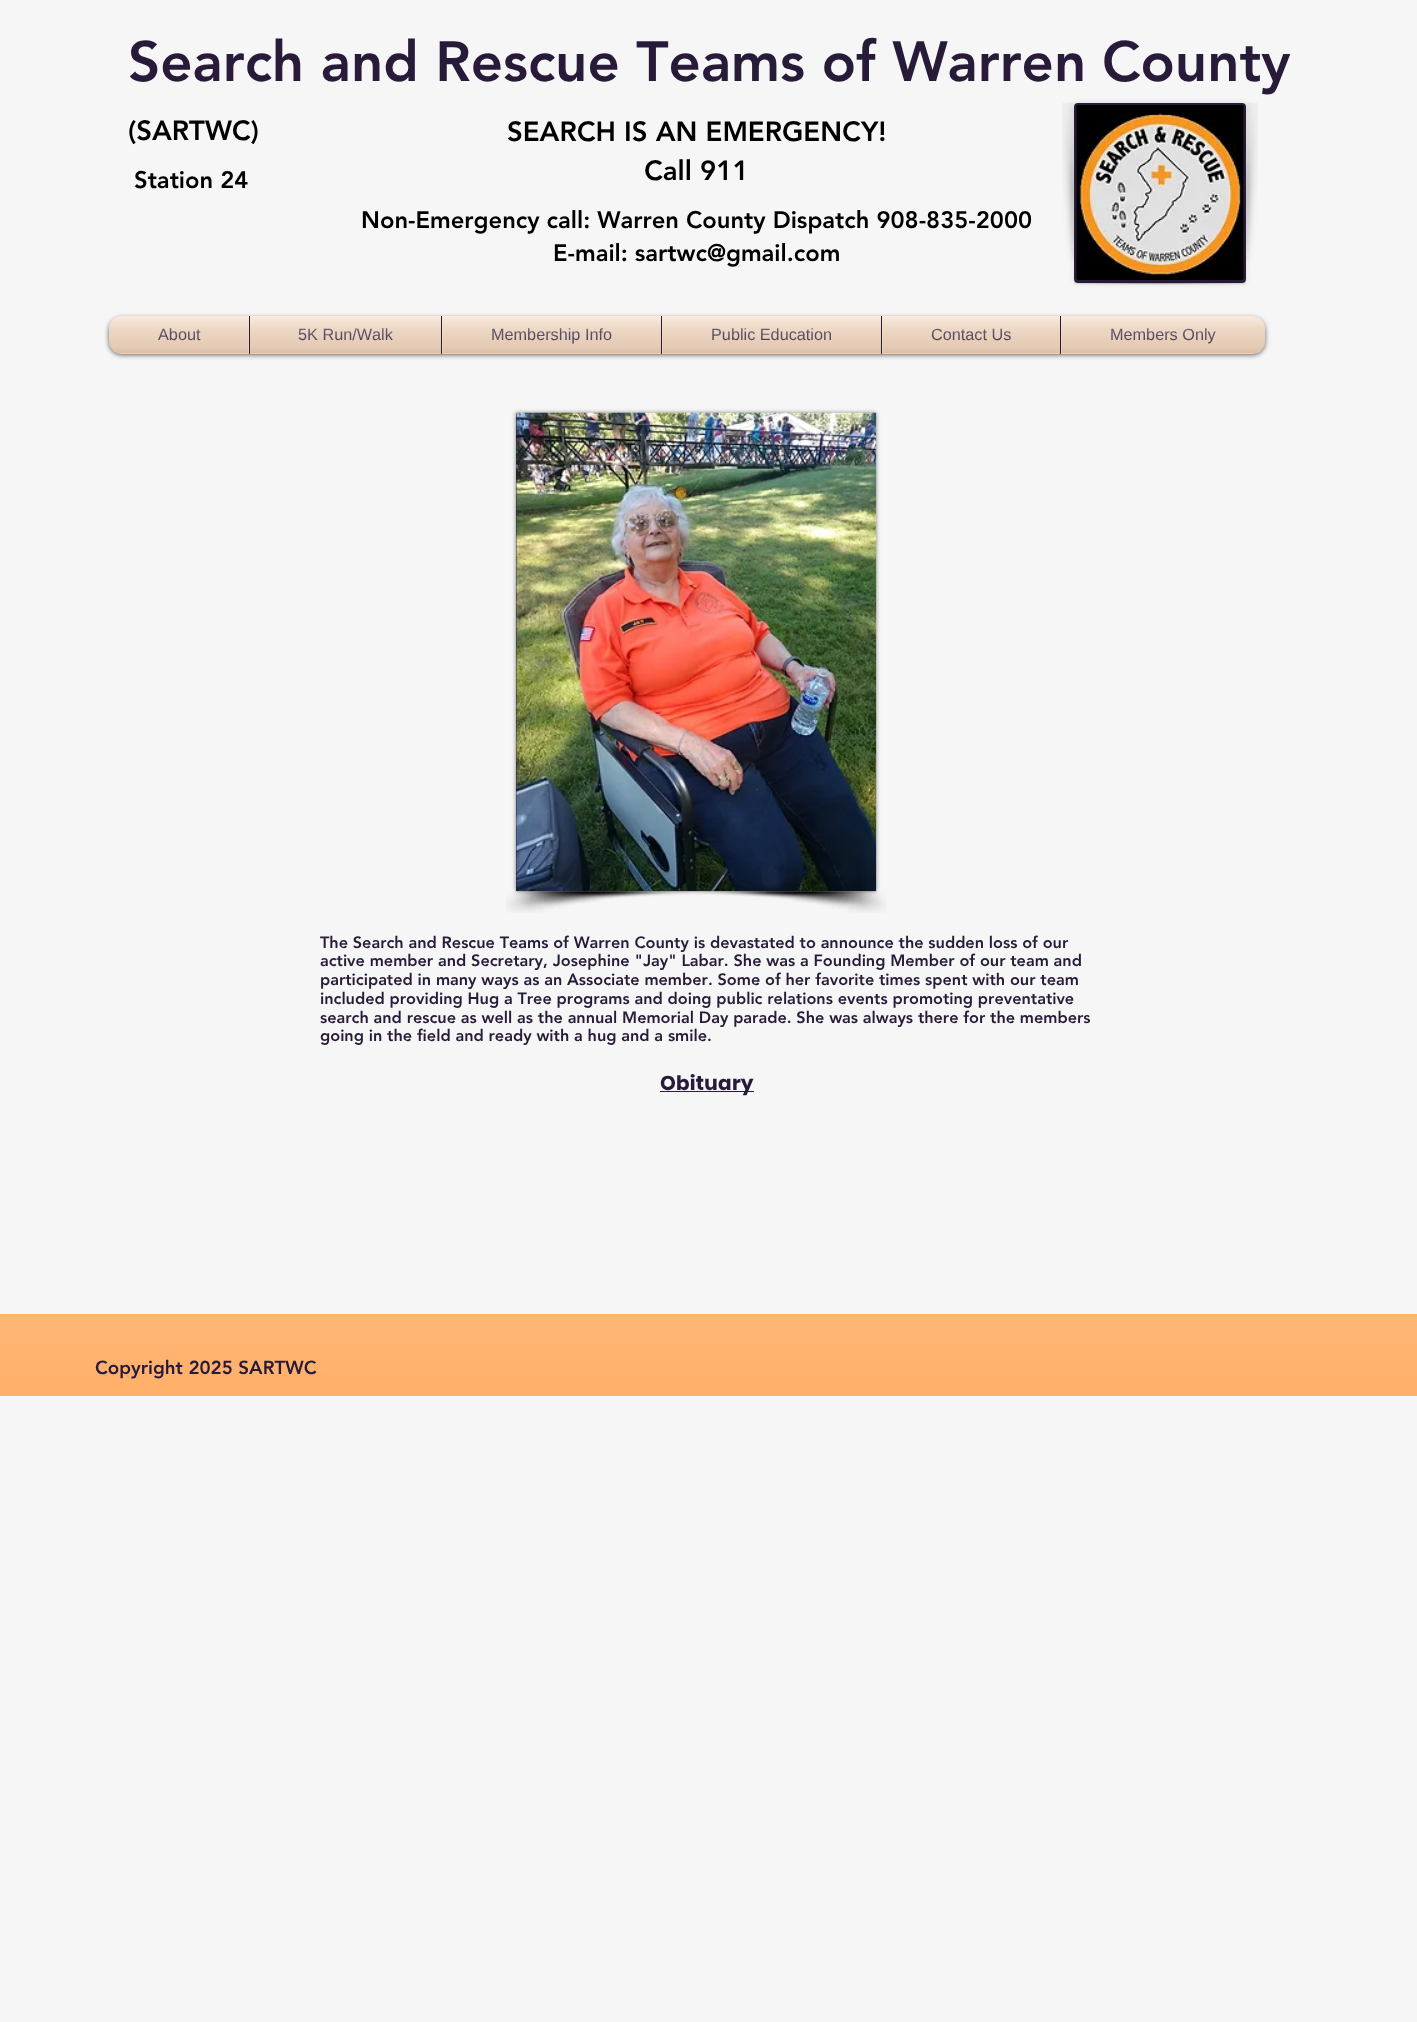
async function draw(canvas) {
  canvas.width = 1417;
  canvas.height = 2022;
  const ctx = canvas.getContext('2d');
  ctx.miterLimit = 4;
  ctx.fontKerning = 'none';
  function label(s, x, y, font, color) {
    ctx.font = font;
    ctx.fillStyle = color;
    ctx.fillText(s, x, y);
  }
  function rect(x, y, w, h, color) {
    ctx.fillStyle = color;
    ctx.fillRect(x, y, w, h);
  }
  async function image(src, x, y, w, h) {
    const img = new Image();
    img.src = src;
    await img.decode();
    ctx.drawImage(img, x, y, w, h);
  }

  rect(0, 0, 1417, 2022, '#f6f6f6');
  label('Search and Rescue Teams of Warren', 128, 81, '900 56.25px "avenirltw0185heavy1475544"', '#281a39');
  label('County', 1102, 81, '900 56.25px "avenirltw0185heavy1475544"', '#281a39');
  label('(SARTWC)', 128, 140, '900 27.5px "avenirltw0185heavy1475544"', '#000');
  label('SEARCH IS AN EMERGENCY!', 507, 141, '900 27.5px "avenirltw0185heavy1475544"', '#000');
  label('Call 911', 644, 180, '900 27.5px "avenirltw0185heavy1475544"', '#000');
  label('Non-Emergency call: Warren County Dispatch 908-835-2000', 361, 228, '900 23.75px "avenirltw0185heavy1475544"', '#000');
  label('E-mail: sartwc@gmail.com', 553, 261, '900 23.75px "avenirltw0185heavy1475544"', '#000');
  ctx.fillStyle = '#0000001a';
  ctx.filter = 'blur(3px)';
  ctx.beginPath();
  ctx.roundRect(1074, 103, 172, 180, 4);
  ctx.fill();
  ctx.filter = 'none';
  ctx.beginPath();
  ctx.roundRect(1075.5, 104.5, 169, 177, 2.5);
  ctx.strokeStyle = '#281a39';
  ctx.lineWidth = 3;
  ctx.stroke();
  await image('assets/img1.png', 1076, 105, 168, 175);
  await image('assets/img2.png', 1074, 282, 172, 3);
  await image('assets/img3.png', 1062, 102, 12, 159);
  await image('assets/img4.png', 1246, 102, 12, 159);
  label('Station 24', 134, 188, '900 23.75px "avenirltw0185heavy1475544"', '#000');
  ctx.fillStyle = '#00000099';
  ctx.filter = 'blur(2.5px)';
  ctx.beginPath();
  ctx.roundRect(109, 318, 1156, 37, 13);
  ctx.fill();
  ctx.filter = 'none';
  await image('assets/img5.png', 109, 316, 1156, 37);
  await image('assets/img6.png', 109, 318, 1156, 36);
  ctx.fillStyle = '#ffdec1';
  ctx.beginPath();
  ctx.roundRect(109, 316, 140, 38, [13, 0, 0, 13]);
  ctx.fill();
  label('About', 158, 340, '16.25px Liberation Sans', '#281a39');
  await image('assets/img7.png', 109, 316, 140, 37);
  await image('assets/img8.png', 109, 317, 140, 37);
  rect(250, 316, 191, 38, '#ffdec1');
  rect(249, 316, 1, 38, '#281a39');
  label('5K Run/Walk', 298, 340, '16.25px Liberation Sans', '#281a39');
  await image('assets/img9.png', 250, 316, 191, 37);
  await image('assets/img10.png', 250, 317, 191, 37);
  rect(442, 316, 219, 38, '#ffdec1');
  rect(441, 316, 1, 38, '#281a39');
  label('Membership Info', 491, 340, '16.25px Liberation Sans', '#281a39');
  await image('assets/img11.png', 442, 316, 219, 37);
  await image('assets/img12.png', 442, 317, 219, 37);
  rect(662, 316, 219, 38, '#ffdec1');
  rect(661, 316, 1, 38, '#281a39');
  label('Public Education', 711, 340, '16.25px Liberation Sans', '#281a39');
  await image('assets/img13.png', 662, 316, 219, 37);
  await image('assets/img14.png', 662, 317, 219, 37);
  rect(882, 316, 178, 38, '#ffdec1');
  rect(881, 316, 1, 38, '#281a39');
  label('Contact Us', 931, 340, '16.25px Liberation Sans', '#281a39');
  await image('assets/img15.png', 882, 316, 178, 37);
  await image('assets/img16.png', 882, 317, 178, 37);
  ctx.fillStyle = '#ffdec1';
  ctx.beginPath();
  ctx.roundRect(1060, 316, 205, 38, [0, 13, 13, 0]);
  ctx.fill();
  rect(1060, 316, 1, 38, '#281a39');
  label('Members Only', 1110, 340, '16.25px Liberation Sans', '#281a39');
  await image('assets/img17.png', 1061, 316, 204, 37);
  await image('assets/img18.png', 1061, 317, 204, 37);
  ctx.fillStyle = '#00000080';
  ctx.filter = 'blur(2px)';
  ctx.beginPath();
  ctx.rect(516, 413, 360, 478);
  ctx.fill();
  ctx.filter = 'none';
  rect(516, 413, 1, 478, '#281a39');
  await image('assets/img19.png', 516, 412, 361, 480);
  await image('assets/img20.png', 506, 891, 183, 22);
  await image('assets/img21.png', 703, 891, 184, 22);
  label('The Search and Rescue Teams of Warren County is devastated to announce the sudden loss of our', 320, 948, '900 16.25px "avenirltw0185heavy1475544"', '#281a39');
  label('active member and Secretary, Josephine "Jay" Labar. She was a Founding Member of our team and', 320, 966, '900 16.25px "avenirltw0185heavy1475544"', '#281a39');
  label('participated in many ways as an Associate member. Some of her favorite times spent with our team', 320, 985, '900 16.25px "avenirltw0185heavy1475544"', '#281a39');
  label('included providing Hug a Tree programs and doing public relations events promoting preventative', 320, 1004, '900 16.25px "avenirltw0185heavy1475544"', '#281a39');
  label('search and rescue as well as the annual Memorial Day parade. She was always there for the members', 320, 1023, '900 16.25px "avenirltw0185heavy1475544"', '#281a39');
  label('going in the field and ready with a hug and a smile.', 320, 1041, '900 16.25px "avenirltw0185heavy1475544"', '#281a39');
  rect(660, 1091, 94, 1, '#281a39');
  ctx.letterSpacing = '0.25px';
  label('Obituary', 660, 1090, 'bold 20px Poppins', '#281a39');
  rect(0, 1314, 1417, 82, '#ff9d46');
  await image('assets/img22.png', 0, 1314, 1417, 82);
  ctx.letterSpacing = '0px';
  label('Copyright 2025 SARTWC', 95, 1374, '900 18.75px "avenirltw0185heavy1475544"', '#281a39');
}

draw(document.querySelector('canvas'));
